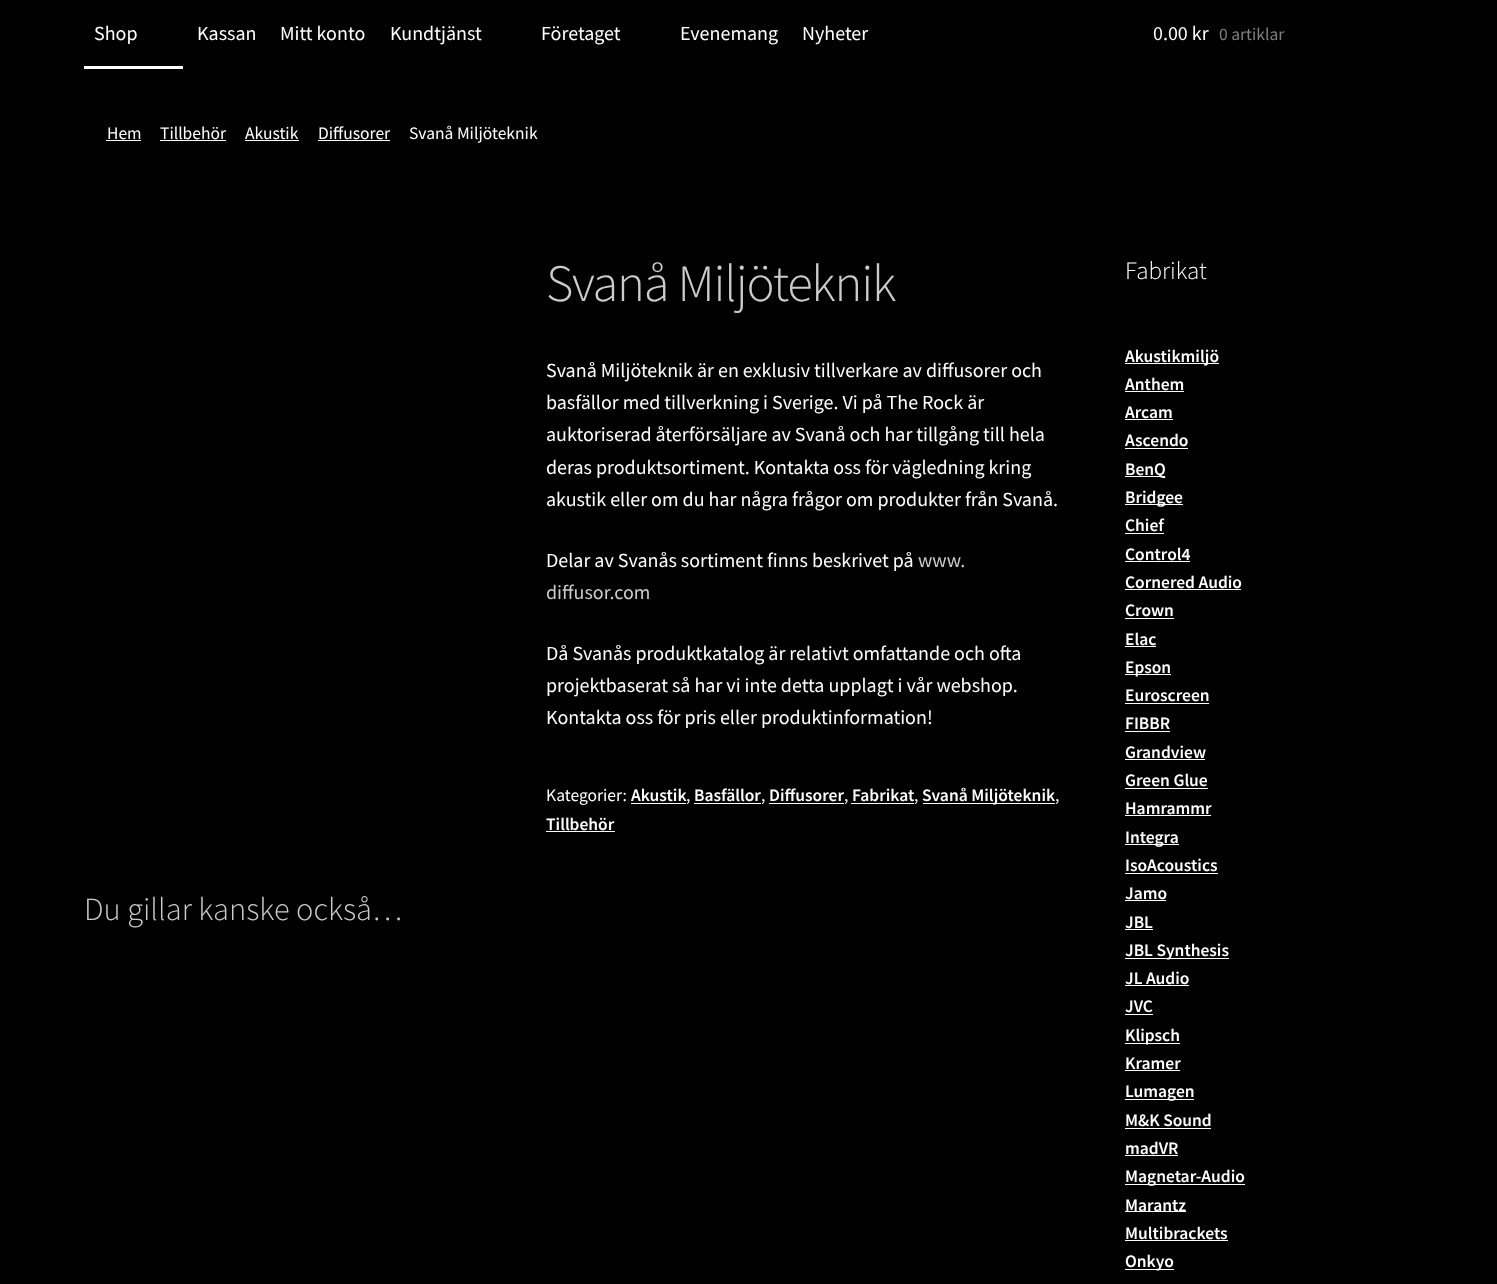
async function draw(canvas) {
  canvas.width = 1497;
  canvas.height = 1284;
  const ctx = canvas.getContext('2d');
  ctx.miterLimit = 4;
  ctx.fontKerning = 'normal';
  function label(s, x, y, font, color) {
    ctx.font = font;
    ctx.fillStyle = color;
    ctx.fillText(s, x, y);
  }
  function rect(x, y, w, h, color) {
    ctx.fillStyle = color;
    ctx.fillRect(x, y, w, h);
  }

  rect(0, 0, 1497, 1284, '#000');
  rect(84, 66, 99, 3, '#fff');
  label('Shop', 94, 40, '20px Source Sans Pro', '#fff');
  label('Kassan', 197, 40, '20px Source Sans Pro', '#fff');
  label('Mitt konto', 280, 40, '20px Source Sans Pro', '#fff');
  label('Kundtjänst', 390, 40, '20px Source Sans Pro', '#fff');
  label('Företaget', 541, 40, '20px Source Sans Pro', '#fff');
  label('Evenemang', 680, 40, '20px Source Sans Pro', '#fff');
  label('Nyheter', 802, 40, '20px Source Sans Pro', '#fff');
  label('0.00 kr', 1153, 40, '20px Source Sans Pro', '#fff');
  label('0 artiklar', 1219, 40, '17.5px Source Sans Pro', '#808080');
  label('Hem', 107, 139, '17.5px Source Sans Pro', '#fff');
  rect(106, 140, 35, 1, '#fff');
  label('Tillbehör', 160, 139, '17.5px Source Sans Pro', '#fff');
  rect(160, 140, 66, 1, '#fff');
  label('Akustik', 245, 139, '17.5px Source Sans Pro', '#fff');
  rect(245, 140, 54, 1, '#fff');
  label('Diffusorer', 318, 139, '17.5px Source Sans Pro', '#fff');
  rect(318, 140, 72, 1, '#fff');
  label('Svanå Miljöteknik', 409, 139, '17.5px Source Sans Pro', '#fff');
  ctx.letterSpacing = '-1.25px';
  label('Svanå Miljöteknik', 546, 301, '300 52.5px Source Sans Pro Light', '#ccc');
  ctx.letterSpacing = '0px';
  label('Svanå Miljöteknik är en exklusiv tillverkare av diffusorer och', 546, 377, '20px Source Sans Pro', '#fff');
  label('basfällor med tillverkning i Sverige. Vi på The Rock är', 546, 409, '20px Source Sans Pro', '#fff');
  label('auktoriserad återförsäljare av Svanå och har tillgång till hela', 546, 441, '20px Source Sans Pro', '#fff');
  label('deras produktsortiment. Kontakta oss för vägledning kring', 546, 474, '20px Source Sans Pro', '#fff');
  label('akustik eller om du har några frågor om produkter från Svanå.', 546, 506, '20px Source Sans Pro', '#fff');
  label('Delar av Svanås sortiment finns beskrivet på', 546, 567, '20px Source Sans Pro', '#fff');
  label('www.', 918, 567, '20px Source Sans Pro', '#ccc');
  label('diffusor.com', 546, 599, '20px Source Sans Pro', '#ccc');
  label('Då Svanås produktkatalog är relativt omfattande och ofta', 546, 660, '20px Source Sans Pro', '#fff');
  label('projektbaserat så har vi inte detta upplagt i vår webshop.', 546, 692, '20px Source Sans Pro', '#fff');
  label('Kontakta oss för pris eller produktinformation!', 546, 724, '20px Source Sans Pro', '#fff');
  label('Kategorier:', 546, 801, '17.5px Source Sans Pro', '#fff');
  label('Akustik', 631, 801, '600 17.5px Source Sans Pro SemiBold', '#fff');
  rect(631, 803, 55, 1, '#fff');
  label(',', 686, 801, '17.5px Source Sans Pro', '#fff');
  label('Basfällor', 694, 801, '600 17.5px Source Sans Pro SemiBold', '#fff');
  rect(694, 803, 67, 1, '#fff');
  label(',', 761, 801, '17.5px Source Sans Pro', '#fff');
  label('Diffusorer', 769, 801, '600 17.5px Source Sans Pro SemiBold', '#fff');
  rect(769, 803, 75, 1, '#fff');
  label(',', 844, 801, '17.5px Source Sans Pro', '#fff');
  label('Fabrikat', 852, 801, '600 17.5px Source Sans Pro SemiBold', '#fff');
  rect(851, 803, 63, 1, '#fff');
  label(',', 914, 801, '17.5px Source Sans Pro', '#fff');
  rect(923, 803, 132, 1, '#fff');
  label('Svanå Miljöteknik', 922, 801, '600 17.5px Source Sans Pro SemiBold', '#fff');
  label(',', 1055, 801, '17.5px Source Sans Pro', '#fff');
  label('Tillbehör', 546, 830, '600 17.5px Source Sans Pro SemiBold', '#fff');
  rect(546, 831, 69, 1, '#fff');
  label('Du gillar kanske också…', 84, 920, '300 32.4px Source Sans Pro Light', '#ccc');
  label('Fabrikat', 1125, 279, '300 25px Source Sans Pro Light', '#fff');
  rect(1125, 363, 94, 1, '#fff');
  label('Akustikmiljö', 1125, 362, '600 17.5px Source Sans Pro SemiBold', '#fff');
  label('Anthem', 1125, 390, '600 17.5px Source Sans Pro SemiBold', '#fff');
  rect(1125, 391, 59, 1, '#fff');
  label('Arcam', 1125, 418, '600 17.5px Source Sans Pro SemiBold', '#fff');
  rect(1125, 419, 48, 1, '#fff');
  label('Ascendo', 1125, 446, '600 17.5px Source Sans Pro SemiBold', '#fff');
  rect(1125, 448, 63, 1, '#fff');
  rect(1125, 476, 40, 1, '#fff');
  label('BenQ', 1125, 475, '600 17.5px Source Sans Pro SemiBold', '#fff');
  rect(1125, 504, 58, 1, '#fff');
  label('Bridgee', 1125, 503, '600 17.5px Source Sans Pro SemiBold', '#fff');
  label('Chief', 1125, 531, '600 17.5px Source Sans Pro SemiBold', '#fff');
  rect(1125, 533, 39, 1, '#fff');
  label('Control4', 1125, 560, '600 17.5px Source Sans Pro SemiBold', '#fff');
  rect(1125, 561, 65, 1, '#fff');
  label('Cornered Audio', 1125, 588, '600 17.5px Source Sans Pro SemiBold', '#fff');
  rect(1125, 589, 116, 1, '#fff');
  label('Crown', 1125, 616, '600 17.5px Source Sans Pro SemiBold', '#fff');
  rect(1125, 618, 49, 1, '#fff');
  label('Elac', 1125, 645, '600 17.5px Source Sans Pro SemiBold', '#fff');
  rect(1125, 646, 31, 1, '#fff');
  rect(1125, 674, 46, 1, '#fff');
  label('Epson', 1125, 673, '600 17.5px Source Sans Pro SemiBold', '#fff');
  label('Euroscreen', 1125, 701, '600 17.5px Source Sans Pro SemiBold', '#fff');
  rect(1125, 703, 84, 1, '#fff');
  label('FIBBR', 1125, 729, '600 17.5px Source Sans Pro SemiBold', '#fff');
  rect(1125, 731, 45, 1, '#fff');
  label('Grandview', 1125, 758, '600 17.5px Source Sans Pro SemiBold', '#fff');
  rect(1125, 759, 80, 1, '#fff');
  label('Green Glue', 1125, 786, '600 17.5px Source Sans Pro SemiBold', '#fff');
  rect(1125, 788, 83, 1, '#fff');
  label('Hamrammr', 1125, 814, '600 17.5px Source Sans Pro SemiBold', '#fff');
  rect(1125, 815, 86, 1, '#fff');
  rect(1125, 844, 54, 1, '#fff');
  label('Integra', 1125, 843, '600 17.5px Source Sans Pro SemiBold', '#fff');
  label('IsoAcoustics', 1125, 871, '600 17.5px Source Sans Pro SemiBold', '#fff');
  rect(1125, 873, 93, 1, '#fff');
  label('Jamo', 1125, 899, '600 17.5px Source Sans Pro SemiBold', '#fff');
  rect(1125, 900, 41, 1, '#fff');
  label('JBL', 1125, 928, '600 17.5px Source Sans Pro SemiBold', '#fff');
  rect(1125, 929, 28, 1, '#fff');
  rect(1125, 958, 104, 1, '#fff');
  label('JBL Synthesis', 1125, 956, '600 17.5px Source Sans Pro SemiBold', '#fff');
  label('JL Audio', 1125, 984, '600 17.5px Source Sans Pro SemiBold', '#fff');
  rect(1125, 985, 64, 1, '#fff');
  label('JVC', 1125, 1012, '600 17.5px Source Sans Pro SemiBold', '#fff');
  rect(1125, 1014, 28, 1, '#fff');
  rect(1125, 1043, 55, 1, '#fff');
  label('Klipsch', 1125, 1041, '600 17.5px Source Sans Pro SemiBold', '#fff');
  label('Kramer', 1125, 1069, '600 17.5px Source Sans Pro SemiBold', '#fff');
  rect(1125, 1070, 55, 1, '#fff');
  rect(1125, 1099, 69, 1, '#fff');
  label('Lumagen', 1125, 1097, '600 17.5px Source Sans Pro SemiBold', '#fff');
  label('M&K Sound', 1125, 1126, '600 17.5px Source Sans Pro SemiBold', '#fff');
  rect(1125, 1128, 86, 1, '#fff');
  label('madVR', 1125, 1154, '600 17.5px Source Sans Pro SemiBold', '#fff');
  rect(1125, 1155, 53, 1, '#fff');
  rect(1125, 1184, 120, 1, '#fff');
  label('Magnetar-Audio', 1125, 1182, '600 17.5px Source Sans Pro SemiBold', '#fff');
  rect(1125, 1211, 61, 1, '#fff');
  label('Marantz', 1125, 1211, '600 17.5px Source Sans Pro SemiBold', '#fff');
  label('Multibrackets', 1125, 1239, '600 17.5px Source Sans Pro SemiBold', '#fff');
  rect(1125, 1240, 103, 1, '#fff');
  rect(1125, 1269, 49, 1, '#fff');
  label('Onkyo', 1125, 1267, '600 17.5px Source Sans Pro SemiBold', '#fff');
}

draw(document.querySelector('canvas'));
